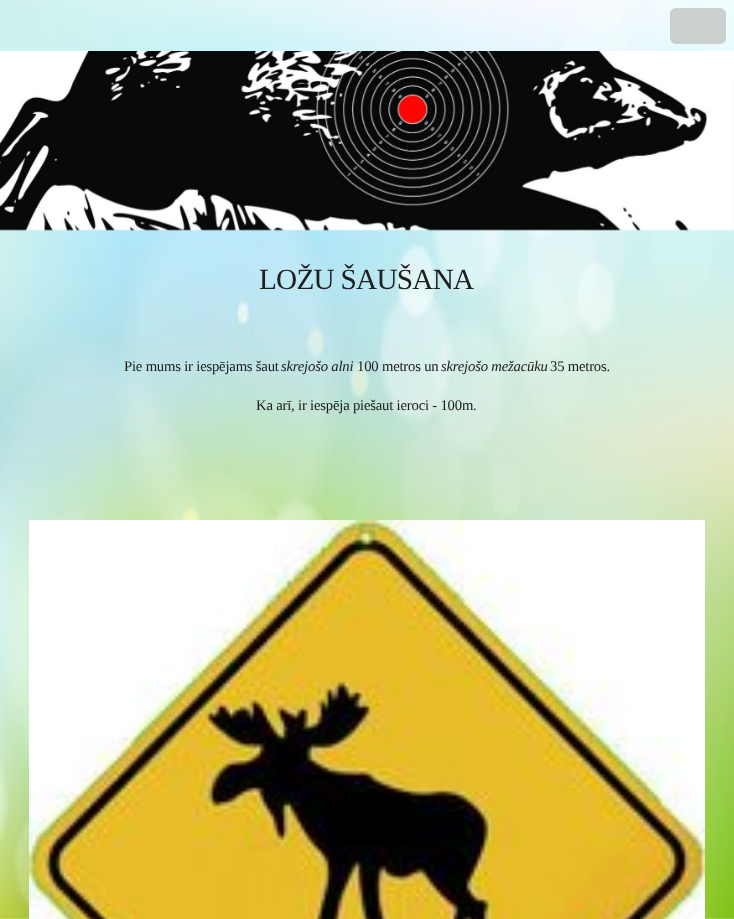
async function draw(canvas) {
  canvas.width = 734;
  canvas.height = 919;
  const ctx = canvas.getContext('2d');
  ctx.miterLimit = 4;
  ctx.fontKerning = 'normal';
  function label(s, x, y, font, color) {
    ctx.font = font;
    ctx.fillStyle = color;
    ctx.fillText(s, x, y);
  }
  function rect(x, y, w, h, color) {
    ctx.fillStyle = color;
    ctx.fillRect(x, y, w, h);
  }
  function roundedRect(x, y, w, h, r, color) {
    ctx.fillStyle = color;
    ctx.beginPath();
    ctx.roundRect(x, y, w, h, r);
    ctx.fill();
  }
  async function image(src, x, y, w, h) {
    const img = new Image();
    img.src = src;
    await img.decode();
    ctx.drawImage(img, x, y, w, h);
  }

  rect(0, 0, 734, 919, '#fff');
  await image('assets/img1.png', 0, 0, 734, 919);
  roundedRect(670, 8, 56, 36, 6, '#c0c0c0bf');
  await image('assets/img2.png', 0, 51, 734, 180);
  ctx.letterSpacing = '-0.75px';
  label('LOŽU ŠAUŠANA', 259, 289, '29.25px Liberation Serif', '#202020');
  ctx.letterSpacing = '-0.2px';
  label('Pie mums ir iespējams šaut', 124, 371, '14.7px Liberation Serif', '#202020');
  label('skrejošo alni', 281, 371, 'italic 14.7px Liberation Serif', '#202020');
  label('100 metros un', 357, 371, '14.7px Liberation Serif', '#202020');
  label('skrejošo mežacūku', 441, 371, 'italic 14.7px Liberation Serif', '#202020');
  label('35 metros.', 550, 371, '14.7px Liberation Serif', '#202020');
  label('Ka arī, ir iespēja piešaut ieroci - 100m.', 256, 410, '14.7px Liberation Serif', '#202020');
  await image('assets/img3.png', 29, 520, 676, 399);
}

draw(document.querySelector('canvas'));
